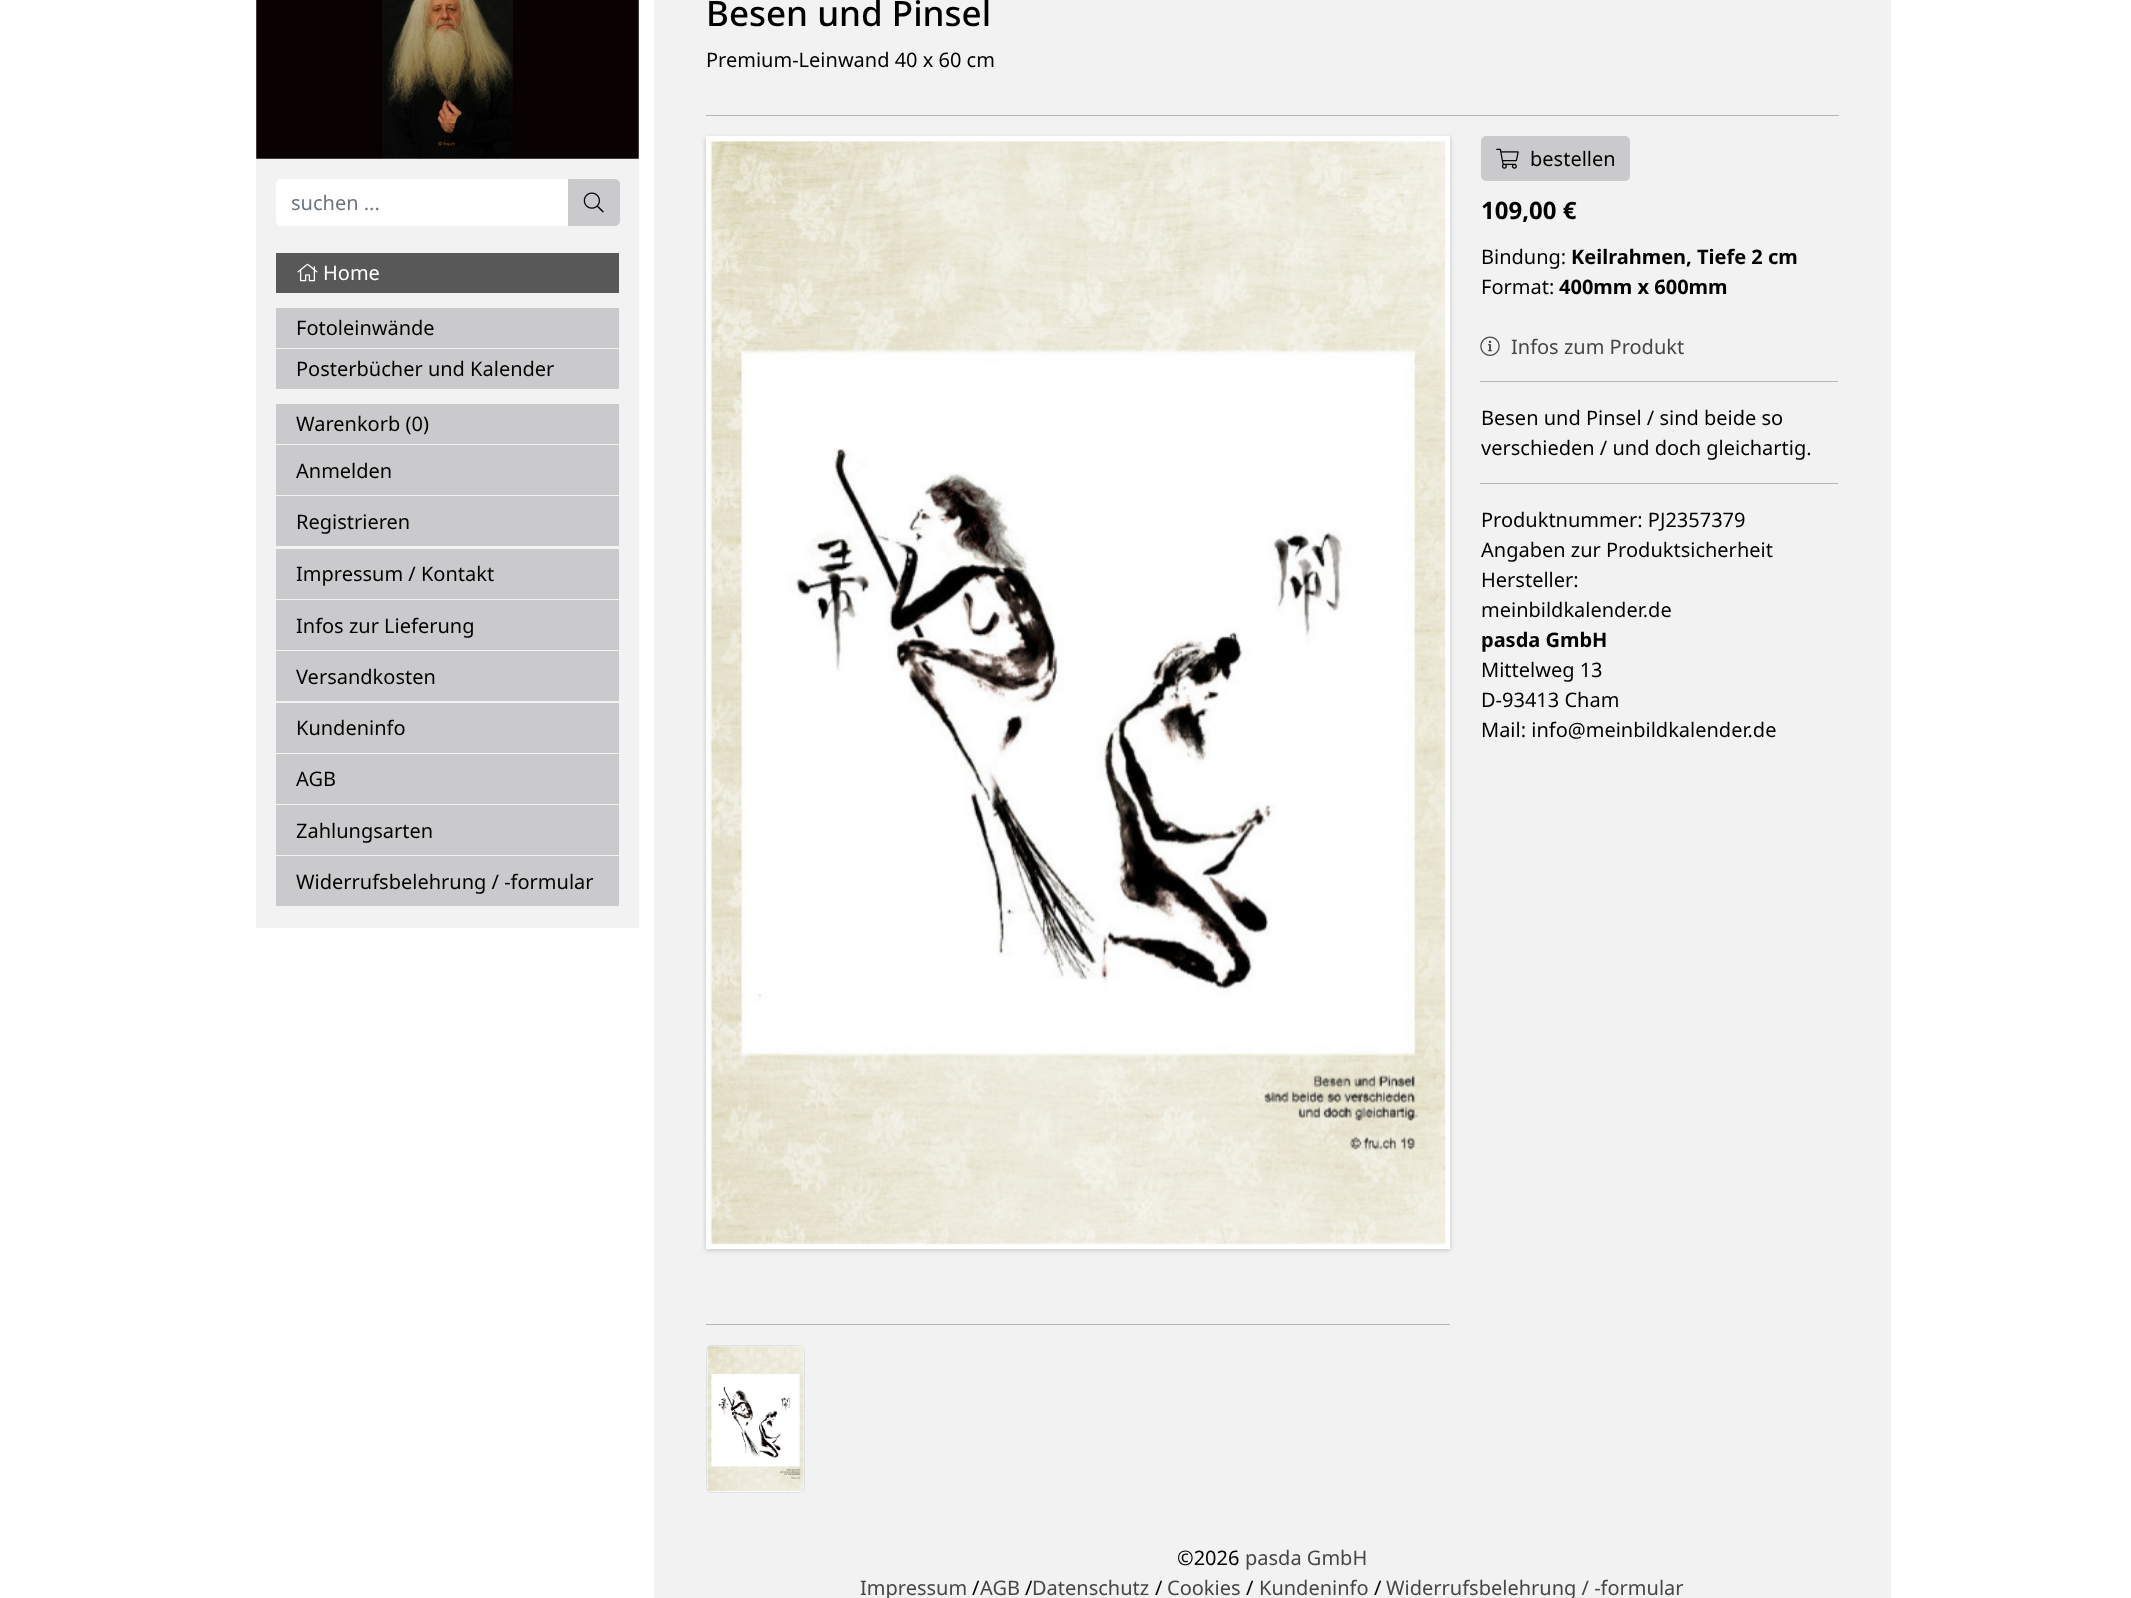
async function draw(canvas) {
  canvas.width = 2131;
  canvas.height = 1598;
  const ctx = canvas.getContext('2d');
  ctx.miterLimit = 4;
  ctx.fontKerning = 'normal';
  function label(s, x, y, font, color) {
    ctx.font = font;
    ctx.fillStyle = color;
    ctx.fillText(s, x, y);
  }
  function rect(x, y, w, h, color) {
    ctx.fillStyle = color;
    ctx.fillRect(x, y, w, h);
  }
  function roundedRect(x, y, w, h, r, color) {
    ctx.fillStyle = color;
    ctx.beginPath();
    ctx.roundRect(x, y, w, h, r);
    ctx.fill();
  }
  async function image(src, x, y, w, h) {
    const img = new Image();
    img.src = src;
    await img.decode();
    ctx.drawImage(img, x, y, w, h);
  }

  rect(0, 0, 2131, 1598, '#fff');
  rect(256, 0, 383, 928, '#f2f2f2');
  await image('assets/img1.png', 256, 0, 383, 159);
  ctx.fillStyle = '#fff';
  ctx.beginPath();
  ctx.roundRect(276, 179, 293, 47, [5, 0, 0, 5]);
  ctx.fill();
  label('suchen ...', 291, 210, '20px Noto Sans', '#6c757d');
  ctx.fillStyle = '#cacacc';
  ctx.beginPath();
  ctx.roundRect(568.5, 179.5, 51, 46, [0, 4.5, 4.5, 0]);
  ctx.fill();
  ctx.strokeStyle = '#cacacc';
  ctx.stroke();
  await image('assets/img2.png', 583, 192, 21, 21);
  rect(276, 253, 343, 40, '#595858');
  await image('assets/img3.png', 297, 263, 21, 19);
  label('Home', 323, 280, '20px Noto Sans', '#fff');
  rect(276, 308, 343, 40, '#cacacc');
  label('Fotoleinwände', 296, 335, '20px Noto Sans', '#000');
  rect(276, 349, 343, 40, '#cacacc');
  label('Posterbücher und Kalender', 296, 376, '20px Noto Sans', '#000');
  rect(276, 404, 343, 40, '#cacacc');
  label('Warenkorb (0)', 296, 431, '20px Noto Sans', '#000');
  rect(276, 445, 343, 50, '#cacacc');
  label('Anmelden', 296, 478, '20px Noto Sans', '#000');
  rect(276, 496, 343, 50, '#cacacc');
  label('Registrieren', 296, 529, '20px Noto Sans', '#000');
  rect(276, 549, 343, 50, '#cacacc');
  label('Impressum / Kontakt', 296, 581, '20px Noto Sans', '#000');
  rect(276, 600, 343, 50, '#cacacc');
  label('Infos zur Lieferung', 296, 633, '20px Noto Sans', '#000');
  rect(276, 651, 343, 50, '#cacacc');
  label('Versandkosten', 296, 684, '20px Noto Sans', '#000');
  rect(276, 703, 343, 50, '#cacacc');
  label('Kundeninfo', 296, 735, '20px Noto Sans', '#000');
  rect(276, 754, 343, 50, '#cacacc');
  label('AGB', 296, 786, '20px Noto Sans', '#000');
  rect(276, 805, 343, 50, '#cacacc');
  label('Zahlungsarten', 296, 838, '20px Noto Sans', '#000');
  rect(276, 856, 343, 50, '#cacacc');
  label('Widerrufsbelehrung / -formular', 296, 889, '20px Noto Sans', '#000');
  rect(654, 0, 1237, 1598, '#f2f2f2');
  label('Besen und Pinsel', 706, 26, '500 35px Noto Sans', '#000');
  label('Premium-Leinwand 40 x 60 cm', 706, 67, '20px Noto Sans', '#000');
  rect(706, 115, 1133, 1, '#b6b6b6');
  ctx.fillStyle = '#00000033';
  ctx.filter = 'blur(2.5px)';
  ctx.beginPath();
  ctx.rect(706, 138, 744, 1112);
  ctx.fill();
  ctx.filter = 'none';
  rect(706, 136, 744, 1113, '#fff');
  await image('assets/img4.png', 710, 140, 736, 1105);
  rect(706, 1324, 744, 1, '#b6b6b6');
  ctx.fillStyle = '#fff';
  ctx.beginPath();
  ctx.roundRect(706.5, 1345.5, 98, 147, 4.5);
  ctx.fill();
  ctx.strokeStyle = '#dee2e6';
  ctx.stroke();
  await image('assets/img5.png', 707, 1346, 97, 146);
  roundedRect(1481, 136, 149, 45, 5, '#cacacc');
  await image('assets/img6.png', 1496, 148, 23, 21);
  label('bestellen', 1530, 166, '20px Noto Sans', '#000');
  label('109,00 €', 1481, 219, 'bold 24px Noto Sans', '#000');
  label('Bindung:', 1481, 264, '20px Noto Sans', '#000');
  label('Keilrahmen, Tiefe 2 cm', 1571, 264, 'bold 20px Noto Sans', '#000');
  label('Format:', 1481, 294, '20px Noto Sans', '#000');
  label('400mm x 600mm', 1559, 294, 'bold 20px Noto Sans', '#000');
  await image('assets/img7.png', 1480, 336, 20, 20);
  label('Infos zum Produkt', 1511, 354, '20px Noto Sans', '#474545');
  rect(1480, 381, 358, 1, '#b6b6b6');
  label('Besen und Pinsel / sind beide so', 1481, 425, '20px Noto Sans', '#000');
  label('verschieden / und doch gleichartig.', 1481, 455, '20px Noto Sans', '#000');
  rect(1480, 483, 358, 1, '#b6b6b6');
  label('Produktnummer: PJ2357379', 1481, 527, '20px Noto Sans', '#000');
  label('Angaben zur Produktsicherheit', 1481, 557, '20px Noto Sans', '#000');
  label('Hersteller:', 1481, 587, '20px Noto Sans', '#000');
  label('meinbildkalender.de', 1481, 617, '20px Noto Sans', '#000');
  label('pasda GmbH', 1481, 647, 'bold 20px Noto Sans', '#000');
  label('Mittelweg 13', 1481, 677, '20px Noto Sans', '#000');
  label('D-93413 Cham', 1481, 707, '20px Noto Sans', '#000');
  label('Mail: info@meinbildkalender.de', 1481, 737, '20px Noto Sans', '#000');
  label('©2026', 1177, 1565, '20px Noto Sans', '#000');
  label('pasda GmbH', 1245, 1565, '20px Noto Sans', '#474545');
  label('Impressum', 860, 1595, '20px Noto Sans', '#474545');
  label('/', 972, 1595, '20px Noto Sans', '#000');
  label('AGB', 980, 1595, '20px Noto Sans', '#474545');
  label('/', 1025, 1595, '20px Noto Sans', '#000');
  label('Datenschutz', 1032, 1595, '20px Noto Sans', '#474545');
  label('/', 1155, 1595, '20px Noto Sans', '#000');
  label('Cookies', 1167, 1595, '20px Noto Sans', '#474545');
  label('/', 1246, 1595, '20px Noto Sans', '#000');
  label('Kundeninfo', 1259, 1595, '20px Noto Sans', '#474545');
  label('/', 1374, 1595, '20px Noto Sans', '#000');
  label('Widerrufsbelehrung / -formular', 1386, 1595, '20px Noto Sans', '#474545');
}

draw(document.querySelector('canvas'));
